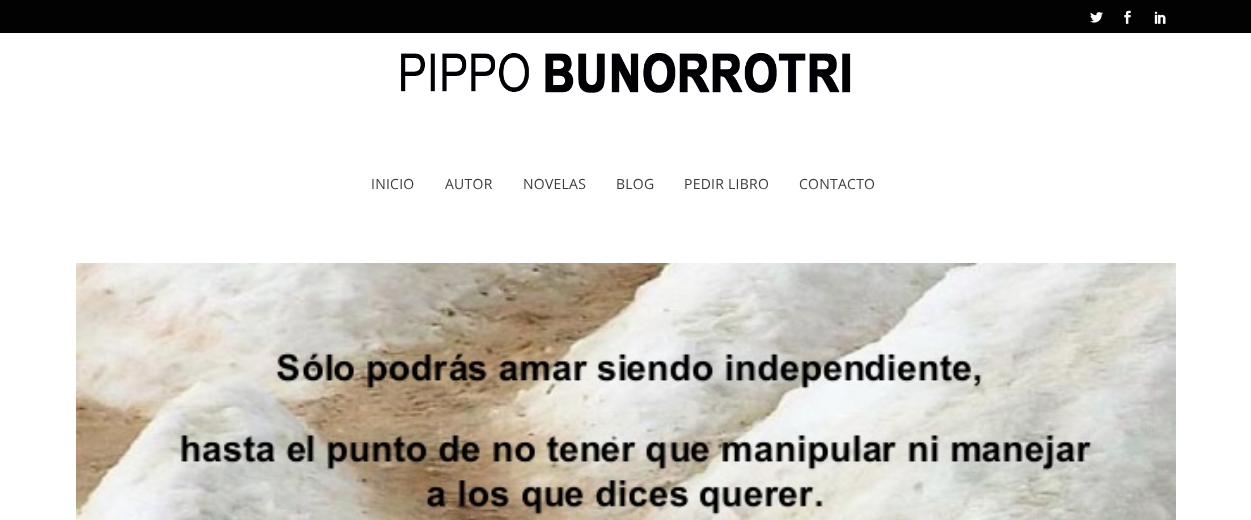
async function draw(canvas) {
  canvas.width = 1251;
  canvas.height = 520;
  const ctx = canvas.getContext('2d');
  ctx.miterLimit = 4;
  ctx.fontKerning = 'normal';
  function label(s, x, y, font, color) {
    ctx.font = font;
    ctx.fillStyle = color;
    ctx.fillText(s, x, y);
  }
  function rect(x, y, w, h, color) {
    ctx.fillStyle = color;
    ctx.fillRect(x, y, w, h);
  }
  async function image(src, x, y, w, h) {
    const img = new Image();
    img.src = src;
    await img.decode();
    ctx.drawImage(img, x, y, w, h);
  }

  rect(0, 0, 1251, 520, '#fff');
  rect(0, 0, 1251, 33, '#020202');
  await image('assets/img1.png', 1090, 12, 13, 11);
  await image('assets/img2.png', 1124, 10, 7, 14);
  await image('assets/img3.png', 1154, 11, 12, 13);
  await image('assets/img4.png', 401, 53, 450, 40);
  ctx.letterSpacing = '0.25px';
  label('INICIO', 371, 189, '14px Open Sans', '#3c3c3c');
  label('AUTOR', 445, 189, '14px Open Sans', '#3c3c3c');
  label('NOVELAS', 523, 189, '14px Open Sans', '#3c3c3c');
  label('BLOG', 616, 189, '14px Open Sans', '#3c3c3c');
  label('PEDIR LIBRO', 684, 189, '14px Open Sans', '#3c3c3c');
  label('CONTACTO', 799, 189, '14px Open Sans', '#3c3c3c');
  await image('assets/img5.png', 76, 263, 1100, 257);
}

draw(document.querySelector('canvas'));
